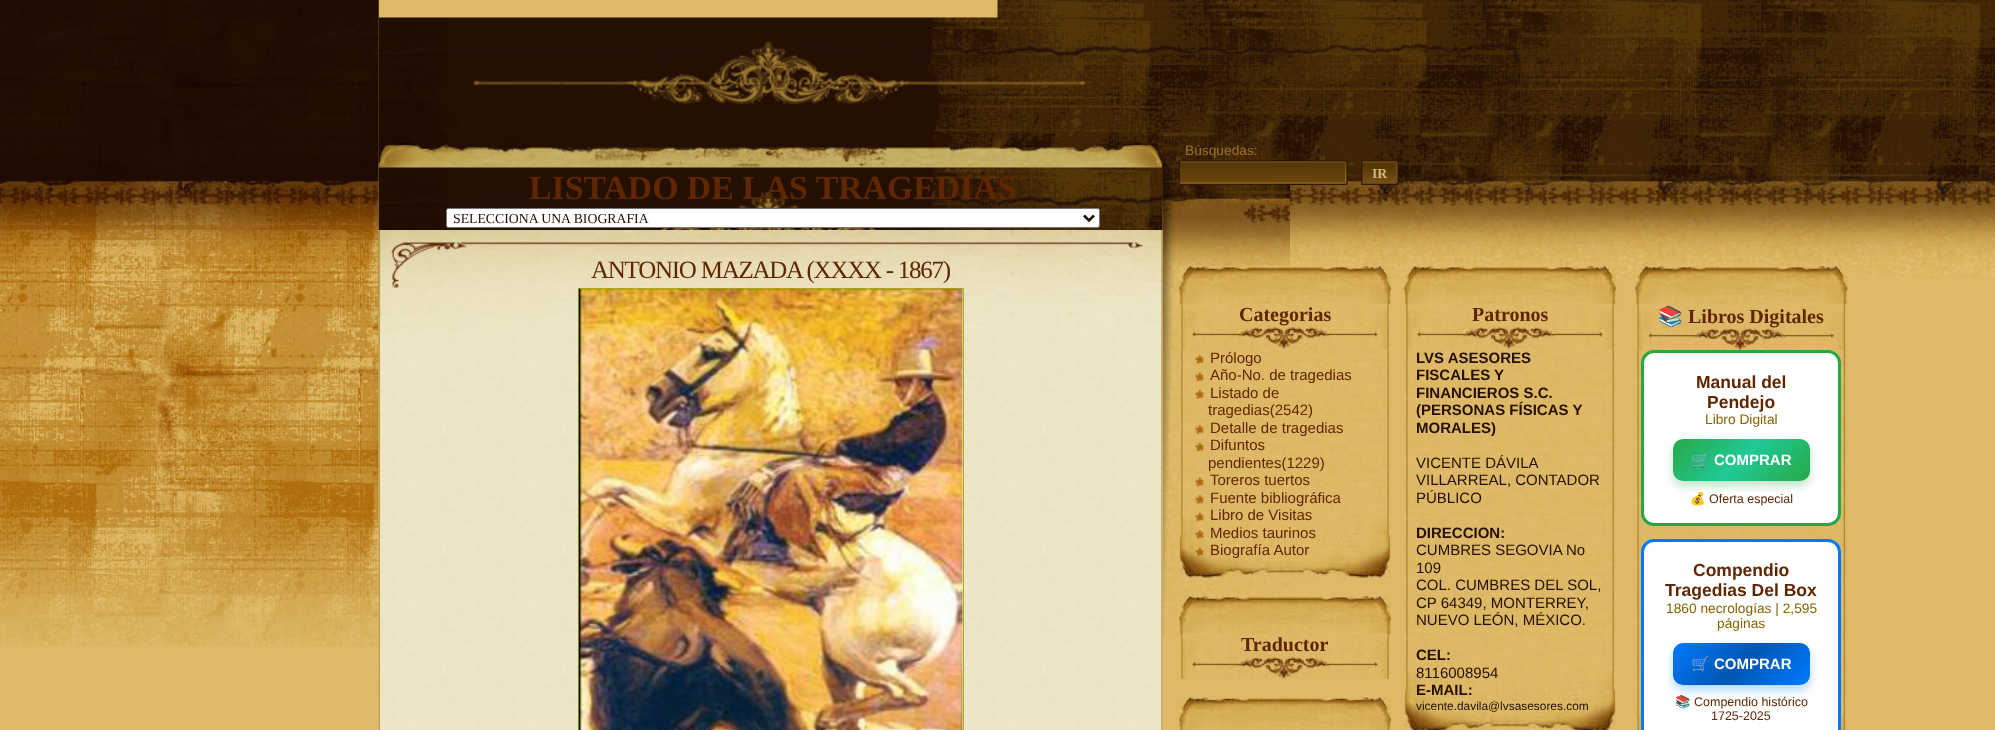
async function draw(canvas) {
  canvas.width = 1995;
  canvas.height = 730;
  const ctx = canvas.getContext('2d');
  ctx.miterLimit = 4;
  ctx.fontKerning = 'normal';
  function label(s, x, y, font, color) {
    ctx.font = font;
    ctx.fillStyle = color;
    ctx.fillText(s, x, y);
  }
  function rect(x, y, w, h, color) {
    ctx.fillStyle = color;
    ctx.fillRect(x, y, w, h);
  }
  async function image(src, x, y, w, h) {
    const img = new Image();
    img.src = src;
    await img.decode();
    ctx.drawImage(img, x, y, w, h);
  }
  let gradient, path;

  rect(0, 0, 1995, 730, '#deb968');
  await image('assets/img1.png', 0, 0, 379, 647);
  await image('assets/img8.png', 997, 0, 998, 279);
  await image('assets/img5.png', 378, 17, 785, 313);
  await image('assets/img2.png', 1162, 17, 360, 65);
  label('Búsquedas:', 1185, 155, '13.75px Liberation Sans', '#97712c');
  await image('assets/img6.png', 378, 167, 785, 313);
  await image('assets/img7.png', 1162, 161, 128, 476);
  await image('assets/img3.png', 1178, 160, 170, 25);
  await image('assets/img4.png', 1361, 160, 38, 25);
  label('IR', 1372, 178, 'bold 13.75px Liberation Serif', '#ceb978');
  label('LISTADO DE LAS TRAGEDIAS', 529, 199, 'bold 33.75px Liberation Serif', '#602600');
  ctx.fillStyle = '#fff';
  ctx.beginPath();
  ctx.roundRect(446.5, 208.5, 653, 19, 2);
  ctx.fill();
  ctx.strokeStyle = '#767676';
  ctx.stroke();
  path = new Path2D('M1084 215.5L1089 220.5L1094 215.5');
  ctx.strokeStyle = '#240f02';
  ctx.lineWidth = 2.5;
  ctx.stroke(path);
  label('SELECCIONA UNA BIOGRAFIA', 453, 223, '13.75px Liberation Serif', '#240f02');
  await image('assets/img9.png', 378, 230, 785, 500);
  await image('assets/img10.png', 1161, 230, 2, 500);
  await image('assets/img11.png', 378, 230, 2, 500);
  await image('assets/img12.png', 378, 230, 785, 100);
  ctx.letterSpacing = '-1.25px';
  label('ANTONIO MAZADA (XXXX - 1867)', 591, 278, '25px Liberation Serif', '#602600');
  await image('assets/img13.png', 391, 242, 752, 46);
  ctx.strokeStyle = '#99ba09';
  ctx.lineWidth = 1;
  ctx.strokeRect(578.5, 288.5, 385, 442);
  await image('assets/img14.png', 578, 288, 385, 442);
  await image('assets/img15.png', 1178, 266, 214, 40);
  await image('assets/img17.png', 1179, 348, 212, 230);
  await image('assets/img16.png', 1179, 303, 212, 46);
  ctx.letterSpacing = '0px';
  label('Categorias', 1239, 321, 'bold 20px Liberation Serif', '#602600');
  await image('assets/img18.png', 1195, 355, 9, 9);
  label('Prólogo', 1210, 363, '15px Liberation Sans', '#602600');
  await image('assets/img19.png', 1195, 372, 9, 10);
  label('Año-No. de tragedias', 1210, 380, '15px Liberation Sans', '#602600');
  await image('assets/img20.png', 1195, 390, 9, 9);
  label('Listado de', 1210, 398, '15px Liberation Sans', '#602600');
  label('tragedias(2542)', 1208, 415, '15px Liberation Sans', '#602600');
  await image('assets/img21.png', 1195, 425, 9, 9);
  label('Detalle de tragedias', 1210, 433, '15px Liberation Sans', '#602600');
  await image('assets/img22.png', 1195, 442, 9, 10);
  label('Difuntos', 1210, 450, '15px Liberation Sans', '#602600');
  label('pendientes(1229)', 1208, 468, '15px Liberation Sans', '#602600');
  await image('assets/img23.png', 1195, 477, 9, 10);
  label('Toreros tuertos', 1210, 485, '15px Liberation Sans', '#602600');
  await image('assets/img24.png', 1195, 495, 9, 9);
  label('Fuente bibliográfica', 1210, 503, '15px Liberation Sans', '#602600');
  await image('assets/img25.png', 1195, 512, 9, 10);
  label('Libro de Visitas', 1210, 520, '15px Liberation Sans', '#602600');
  await image('assets/img26.png', 1195, 530, 9, 9);
  label('Medios taurinos', 1210, 538, '15px Liberation Sans', '#602600');
  await image('assets/img27.png', 1195, 547, 9, 10);
  label('Biografía Autor', 1210, 555, '15px Liberation Sans', '#602600');
  await image('assets/img28.png', 1178, 596, 214, 40);
  await image('assets/img29.png', 1179, 633, 212, 46);
  label('Traductor', 1241, 651, 'bold 20px Liberation Serif', '#602600');
  await image('assets/img30.png', 1178, 697, 214, 33);
  await image('assets/img31.png', 1403, 266, 214, 40);
  await image('assets/img33.png', 1404, 348, 212, 382);
  await image('assets/img32.png', 1404, 303, 212, 46);
  label('Patronos', 1472, 321, 'bold 20px Liberation Serif', '#602600');
  label('LVS ASESORES', 1416, 363, 'bold 15px Liberation Sans', '#240f02');
  label('FISCALES Y', 1416, 380, 'bold 15px Liberation Sans', '#240f02');
  label('FINANCIEROS S.C.', 1416, 398, 'bold 15px Liberation Sans', '#240f02');
  label('(PERSONAS FÍSICAS Y', 1416, 415, 'bold 15px Liberation Sans', '#240f02');
  label('MORALES)', 1416, 433, 'bold 15px Liberation Sans', '#240f02');
  label('VICENTE DÁVILA', 1416, 468, '15px Liberation Sans', '#240f02');
  label('VILLARREAL, CONTADOR', 1416, 485, '15px Liberation Sans', '#240f02');
  label('PÚBLICO', 1416, 503, '15px Liberation Sans', '#240f02');
  label('DIRECCION:', 1416, 538, 'bold 15px Liberation Sans', '#240f02');
  label('CUMBRES SEGOVIA No', 1416, 555, '15px Liberation Sans', '#240f02');
  label('109', 1416, 573, '15px Liberation Sans', '#240f02');
  label('COL. CUMBRES DEL SOL,', 1416, 590, '15px Liberation Sans', '#240f02');
  label('CP 64349, MONTERREY,', 1416, 608, '15px Liberation Sans', '#240f02');
  label('NUEVO LEÓN, MÉXICO.', 1416, 625, '15px Liberation Sans', '#240f02');
  label('CEL:', 1416, 660, 'bold 15px Liberation Sans', '#240f02');
  label('8116008954', 1416, 678, '15px Liberation Sans', '#240f02');
  label('E-MAIL:', 1416, 695, 'bold 15px Liberation Sans', '#240f02');
  label('vicente.davila@lvsasesores.com', 1416, 710, '11.9px Liberation Sans', '#240f02');
  await image('assets/img34.png', 1635, 266, 213, 41);
  await image('assets/img35.png', 1635, 303, 213, 47);
  label('📚', 1658, 323, 'bold 20px Noto Color Emoji', '#602600');
  label('Libros Digitales', 1688, 323, 'bold 20px Liberation Serif', '#602600');
  await image('assets/img36.png', 1635, 350, 212, 380);
  ctx.fillStyle = '#fff';
  ctx.beginPath();
  ctx.roundRect(1642.5, 351.5, 197, 173, 11.5);
  ctx.fill();
  ctx.strokeStyle = '#28a745';
  ctx.lineWidth = 3;
  ctx.stroke();
  label('Manual del', 1696, 388, 'bold 17.5px Liberation Sans', '#602600');
  label('Pendejo', 1707, 408, 'bold 17.5px Liberation Sans', '#602600');
  label('Libro Digital', 1705, 424, '13.75px Liberation Sans', '#856404');
  ctx.fillStyle = '#28a7454d';
  ctx.filter = 'blur(5px)';
  ctx.beginPath();
  ctx.roundRect(1673, 444, 137, 42, 10);
  ctx.fill();
  ctx.filter = 'none';
  gradient = ctx.createLinearGradient(1696, 415, 1786, 505);
  gradient.addColorStop(0, '#28a745');
  gradient.addColorStop(0.5, '#20c997');
  gradient.addColorStop(1, '#28a745');
  ctx.fillStyle = gradient;
  ctx.beginPath();
  ctx.roundRect(1673, 439, 137, 42, 10);
  ctx.fill();
  label('🛒', 1691, 465, 'bold 15px Noto Color Emoji', '#fff');
  label('COMPRAR', 1714, 465, 'bold 15px Liberation Sans', '#fff');
  label('💰', 1690, 503, '12.5px Noto Color Emoji', '#602600');
  label('Oferta especial', 1709, 503, '12.5px Liberation Sans', '#602600');
  ctx.fillStyle = '#fff';
  ctx.beginPath();
  ctx.roundRect(1642.5, 540.5, 197, 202, 11.5);
  ctx.fill();
  ctx.strokeStyle = '#007bff';
  ctx.stroke();
  label('Compendio', 1693, 576, 'bold 17.5px Liberation Sans', '#602600');
  label('Tragedias Del Box', 1665, 596, 'bold 17.5px Liberation Sans', '#602600');
  label('1860 necrologías | 2,595', 1666, 613, '13.75px Liberation Sans', '#856404');
  label('páginas', 1717, 628, '13.75px Liberation Sans', '#856404');
  ctx.fillStyle = '#007bff4d';
  ctx.filter = 'blur(5px)';
  ctx.beginPath();
  ctx.roundRect(1673, 648, 137, 42, 10);
  ctx.fill();
  ctx.filter = 'none';
  gradient = ctx.createLinearGradient(1696, 619, 1786, 709);
  gradient.addColorStop(0, '#007bff');
  gradient.addColorStop(0.5, '#0056b3');
  gradient.addColorStop(1, '#007bff');
  ctx.fillStyle = gradient;
  ctx.beginPath();
  ctx.roundRect(1673, 643, 137, 42, 10);
  ctx.fill();
  label('🛒', 1691, 669, 'bold 15px Noto Color Emoji', '#fff');
  label('COMPRAR', 1714, 669, 'bold 15px Liberation Sans', '#fff');
  label('📚', 1675, 706, '12.5px Noto Color Emoji', '#602600');
  label('Compendio histórico', 1694, 706, '12.5px Liberation Sans', '#602600');
  label('1725-2025', 1711, 720, '12.5px Liberation Sans', '#602600');
}

draw(document.querySelector('canvas'));
